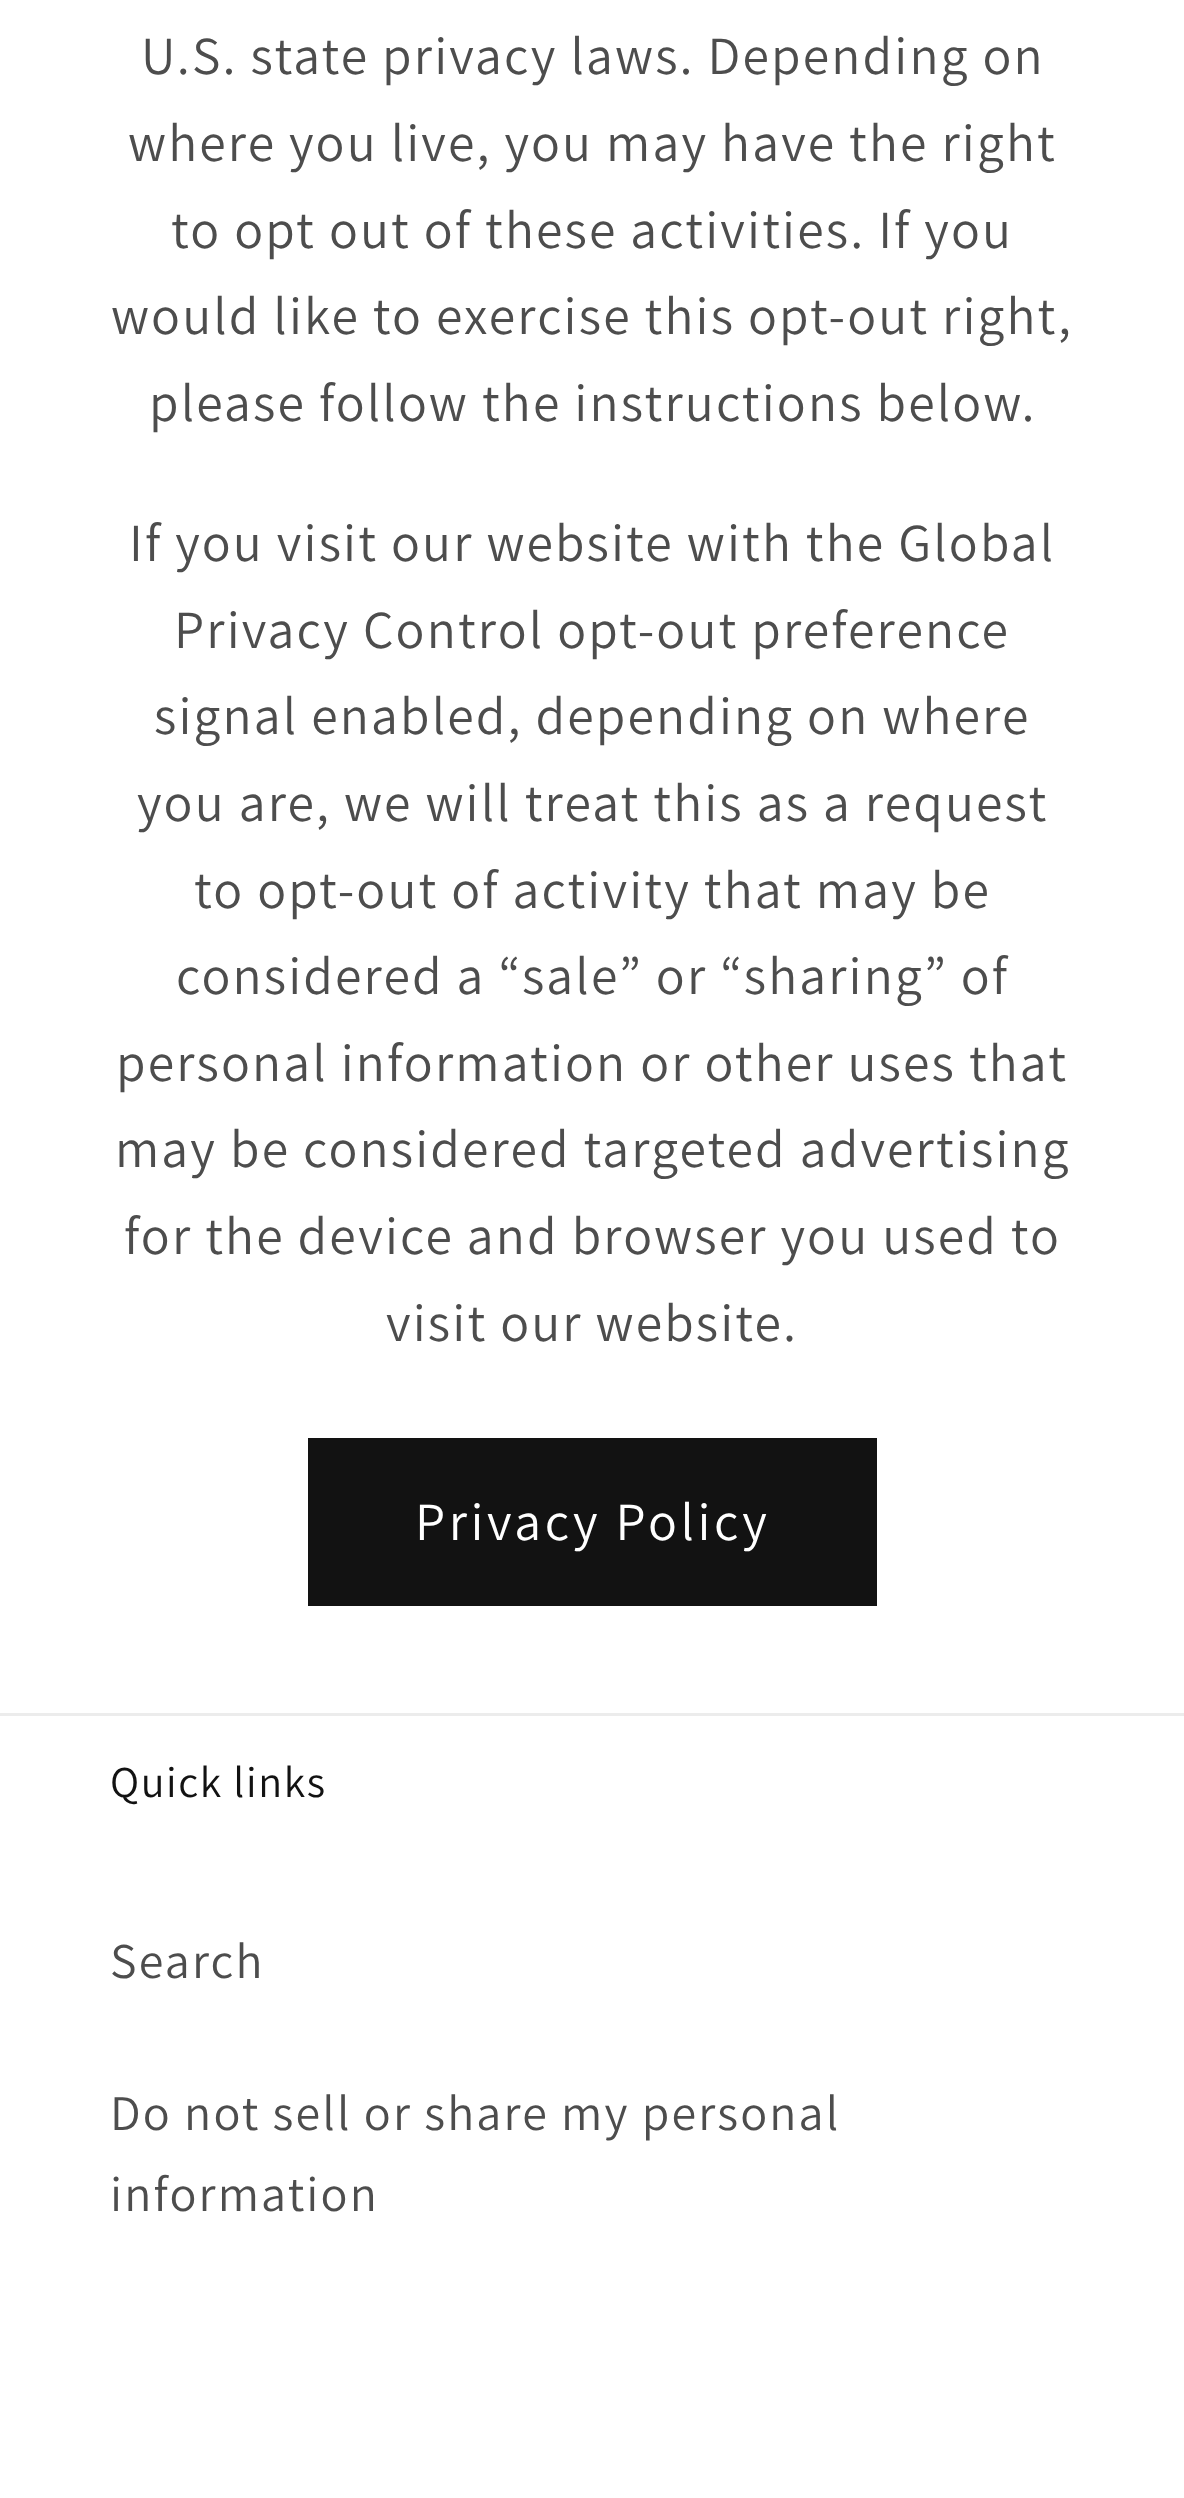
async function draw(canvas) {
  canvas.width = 1184;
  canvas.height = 2498;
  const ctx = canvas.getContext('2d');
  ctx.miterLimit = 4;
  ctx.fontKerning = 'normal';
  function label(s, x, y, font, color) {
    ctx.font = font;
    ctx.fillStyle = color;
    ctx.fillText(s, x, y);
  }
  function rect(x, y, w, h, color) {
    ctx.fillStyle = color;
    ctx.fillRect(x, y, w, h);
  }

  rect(0, 0, 1184, 2498, '#fff');
  ctx.letterSpacing = '2.15px';
  label('U.S. state privacy laws. Depending on', 141, 74, '53.6px Assistant', '#4d4d4d');
  label('where you live, you may have the right', 128, 161, '53.6px Assistant', '#4d4d4d');
  label('to opt out of these activities. If you', 171, 248, '53.6px Assistant', '#4d4d4d');
  label('would like to exercise this opt-out right,', 111, 334, '53.6px Assistant', '#4d4d4d');
  label('please follow the instructions below.', 149, 421, '53.6px Assistant', '#4d4d4d');
  label('If you visit our website with the Global', 129, 561, '53.6px Assistant', '#4d4d4d');
  label('Privacy Control opt-out preference', 174, 648, '53.6px Assistant', '#4d4d4d');
  label('signal enabled, depending on where', 154, 734, '53.6px Assistant', '#4d4d4d');
  label('you are, we will treat this as a request', 137, 821, '53.6px Assistant', '#4d4d4d');
  label('to opt-out of activity that may be', 194, 908, '53.6px Assistant', '#4d4d4d');
  label('considered a “sale” or “sharing” of', 176, 994, '53.6px Assistant', '#4d4d4d');
  label('personal information or other uses that', 116, 1081, '53.6px Assistant', '#4d4d4d');
  label('may be considered targeted advertising', 115, 1167, '53.6px Assistant', '#4d4d4d');
  label('for the device and browser you used to', 124, 1254, '53.6px Assistant', '#4d4d4d');
  label('visit our website.', 386, 1341, '53.6px Assistant', '#4d4d4d');
  rect(308, 1438, 569, 168, '#121212');
  ctx.letterSpacing = '3.6px';
  label('Privacy Policy', 415, 1540, '53.6px Assistant', '#fff');
  rect(0, 1713, 1184, 3, '#ececec');
  ctx.letterSpacing = '1.6px';
  label('Quick links', 110, 1797, '44px Assistant', '#121212');
  ctx.letterSpacing = '2.15px';
  label('Search', 110, 1978, '50px Assistant', '#4d4d4d');
  label('Do not sell or share my personal', 110, 2130, '50px Assistant', '#4d4d4d');
  label('information', 110, 2211, '50px Assistant', '#4d4d4d');
}

draw(document.querySelector('canvas'));
